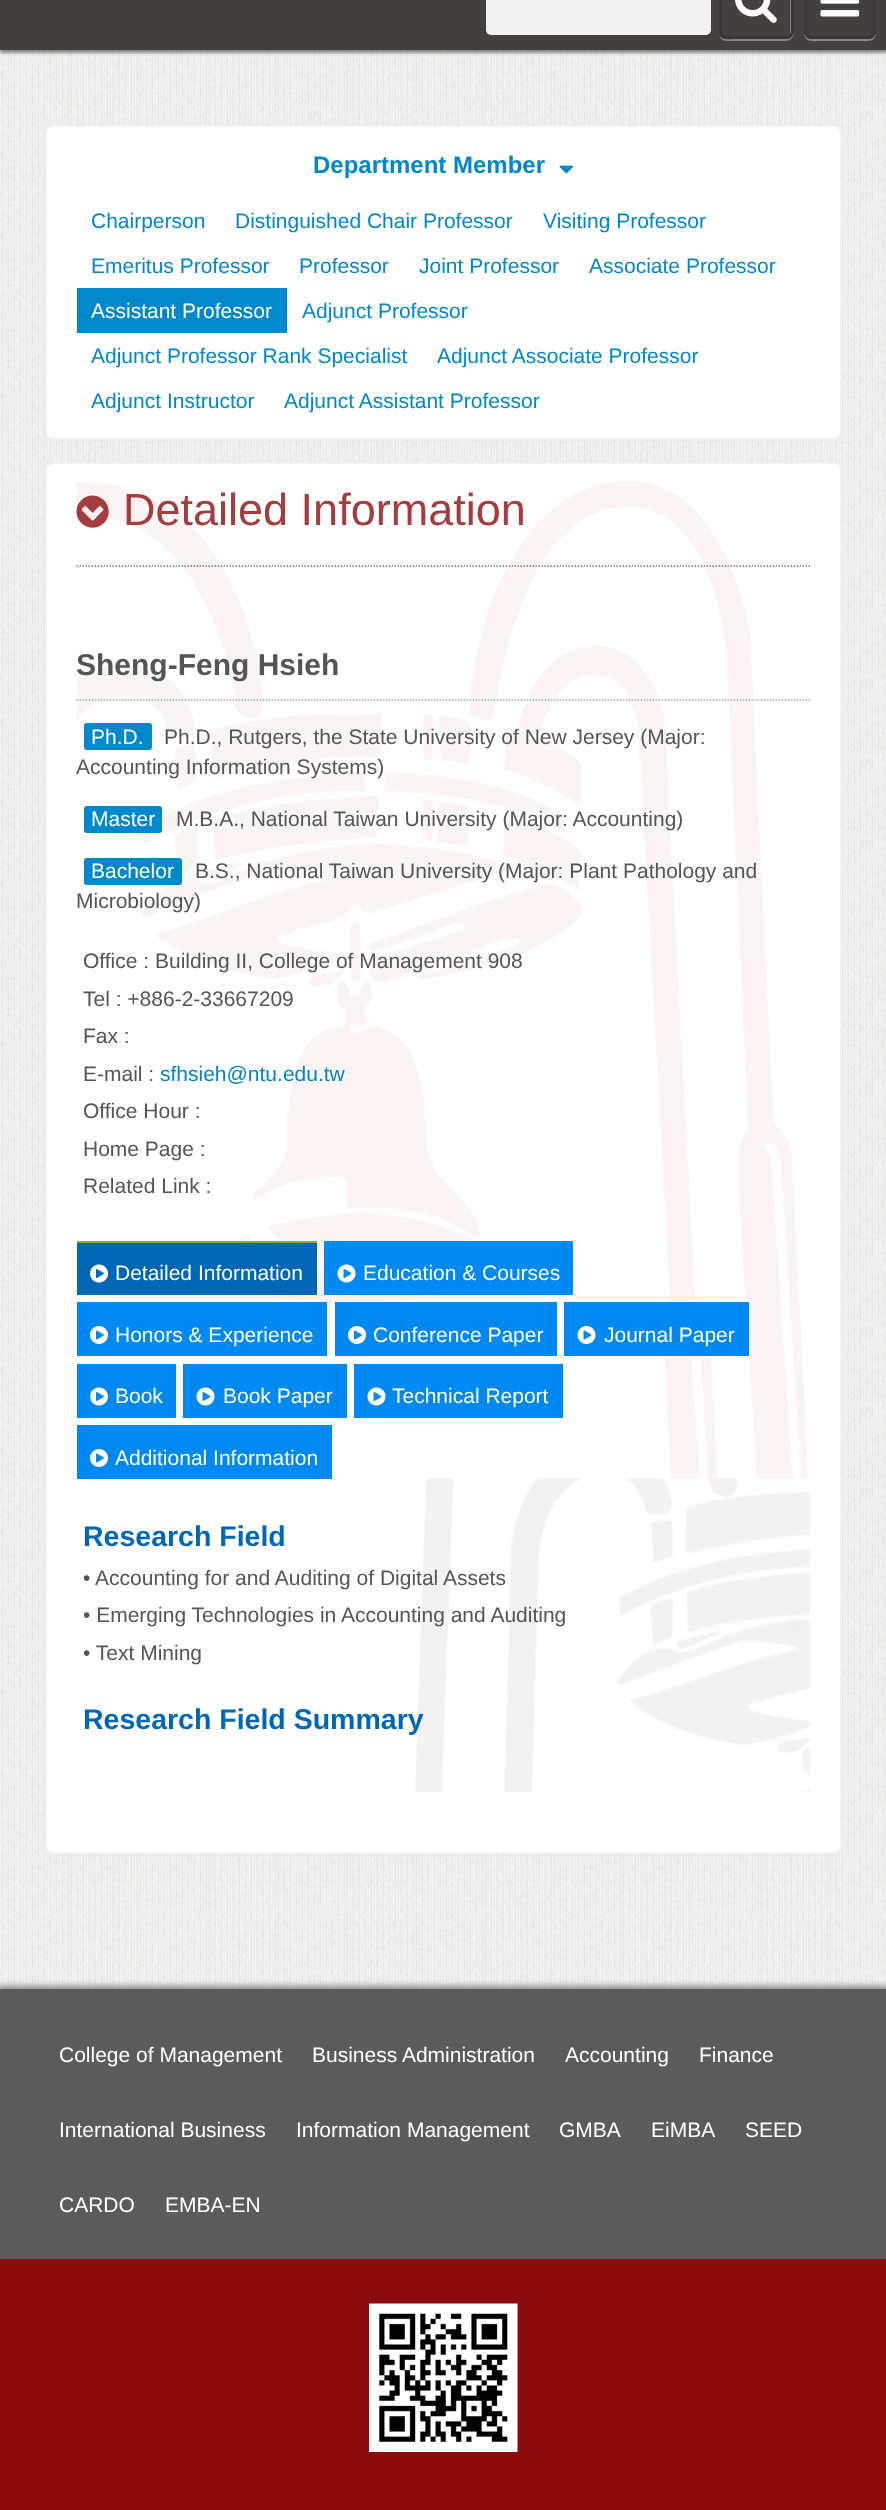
async function draw(canvas) {
  canvas.width = 886;
  canvas.height = 2510;
  const ctx = canvas.getContext('2d');
  ctx.miterLimit = 4;
  ctx.fontKerning = 'normal';
  function label(s, x, y, font, color) {
    ctx.font = font;
    ctx.fillStyle = color;
    ctx.fillText(s, x, y);
  }
  function rect(x, y, w, h, color) {
    ctx.fillStyle = color;
    ctx.fillRect(x, y, w, h);
  }
  function roundedRect(x, y, w, h, r, color) {
    ctx.fillStyle = color;
    ctx.beginPath();
    ctx.roundRect(x, y, w, h, r);
    ctx.fill();
  }
  async function image(src, x, y, w, h) {
    const img = new Image();
    img.src = src;
    await img.decode();
    ctx.drawImage(img, x, y, w, h);
  }
  let path;

  rect(0, 0, 886, 2510, '#fff');
  await image('assets/img1.png', 0, 50, 886, 1939);
  ctx.fillStyle = '#888';
  ctx.filter = 'blur(1.5px)';
  ctx.beginPath();
  ctx.rect(0, -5, 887, 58);
  ctx.fill();
  ctx.filter = 'none';
  rect(0, 0, 886, 50, '#444040');
  roundedRect(486, -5, 225, 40, 5, '#f2f2f2');
  ctx.fillStyle = '#878787';
  path = new Path2D('M719 35C720 38 723 41 727 41H786C790 41 794 37 794 33V-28L793-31L794 21C794 39 794 39 776 39H736C731 39 722 41 719 35Z');
  ctx.fill(path);
  roundedRect(719, -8, 75, 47, 8, '#444040');
  ctx.fillStyle = '#878787';
  path = new Path2D('M726-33H776C780-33 790-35 790-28V34C791 33 791 32 791 31V-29C791-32 789-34 786-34H727C724-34 722-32 722-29V-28C722-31 724-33 726-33Z');
  ctx.fill(path);
  ctx.beginPath();
  ctx.roundRect(720.5, -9.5, 72, 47, 6.5);
  ctx.strokeStyle = '#383838';
  ctx.lineWidth = 3;
  ctx.stroke();
  await image('assets/img2.png', 735, 0, 42, 23);
  path = new Path2D('M804 32C804 43 813 41 821 41H859C867 41 876 43 876 32C876 36 873 39 868 39H812C807 39 804 36 804 32Z');
  ctx.fill(path);
  ctx.beginPath();
  ctx.roundRect(805.5, -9.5, 69, 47, 6.5);
  ctx.stroke();
  await image('assets/img3.png', 820, 0, 40, 17);
  ctx.fillStyle = '#e8e8e8';
  ctx.filter = 'blur(1.5px)';
  ctx.beginPath();
  ctx.roundRect(45, 125, 797, 315, 8);
  ctx.fill();
  ctx.filter = 'none';
  ctx.fillStyle = '#fff';
  ctx.beginPath();
  ctx.roundRect(46, 126, 795, 313, 7);
  ctx.fill();
  ctx.strokeStyle = '#f2f2f2';
  ctx.lineWidth = 2;
  ctx.stroke();
  label('Department Member', 313, 173, 'bold 24px Liberation Sans', '#08c');
  await image('assets/img4.png', 559, 165, 15, 9);
  label('Chairperson', 91, 228, '21px Liberation Sans', '#08c');
  label('Distinguished Chair Professor', 235, 228, '21px Liberation Sans', '#08c');
  label('Visiting Professor', 543, 228, '21px Liberation Sans', '#08c');
  label('Emeritus Professor', 91, 273, '21px Liberation Sans', '#08c');
  label('Professor', 299, 273, '21px Liberation Sans', '#08c');
  label('Joint Professor', 419, 273, '21px Liberation Sans', '#08c');
  label('Associate Professor', 589, 273, '21px Liberation Sans', '#08c');
  rect(77, 288, 210, 45, '#08c');
  label('Assistant Professor', 91, 318, '21px Liberation Sans', '#fff');
  label('Adjunct Professor', 302, 318, '21px Liberation Sans', '#08c');
  label('Adjunct Professor Rank Specialist', 91, 363, '21px Liberation Sans', '#08c');
  label('Adjunct Associate Professor', 437, 363, '21px Liberation Sans', '#08c');
  label('Adjunct Instructor', 91, 408, '21px Liberation Sans', '#08c');
  label('Adjunct Assistant Professor', 284, 408, '21px Liberation Sans', '#08c');
  ctx.fillStyle = '#e8e8e8';
  ctx.filter = 'blur(1.5px)';
  ctx.beginPath();
  ctx.roundRect(45, 462, 797, 1392, 8);
  ctx.fill();
  ctx.filter = 'none';
  ctx.fillStyle = '#fff';
  ctx.beginPath();
  ctx.roundRect(46, 463, 795, 1390, 7);
  ctx.fill();
  ctx.stroke();
  await image('assets/img5.png', 76, 481, 733, 998);
  await image('assets/img6.png', 76, 495, 33, 33);
  label('Detailed Information', 123, 525, '45px Liberation Sans', '#a53c3e');
  path = new Path2D('M76.5 566H810');
  ctx.strokeStyle = '#777';
  ctx.lineWidth = 1.5;
  ctx.setLineDash([1.5, 1.5]);
  ctx.stroke(path);
  path = new Path2D('M76.5 700H810');
  ctx.strokeStyle = '#aaa';
  ctx.stroke(path);
  label('Sheng-Feng Hsieh', 76, 675, 'bold 30px Liberation Sans', '#555');
  roundedRect(84, 723, 68, 27, 3, '#08c');
  label('Ph.D.', 91, 744, '21px Liberation Sans', '#fff');
  label('Ph.D., Rutgers, the State University of New Jersey (Major:', 164, 744, '21px Liberation Sans', '#555');
  label('Accounting Information Systems)', 76, 774, '21px Liberation Sans', '#555');
  roundedRect(84, 806, 78, 27, 3, '#08c');
  label('Master', 91, 826, '21px Liberation Sans', '#fff');
  label('M.B.A., National Taiwan University (Major: Accounting)', 176, 826, '21px Liberation Sans', '#555');
  roundedRect(84, 858, 98, 27, 3, '#08c');
  label('Bachelor', 91, 878, '21px Liberation Sans', '#fff');
  label('B.S., National Taiwan University (Major: Plant Pathology and', 195, 878, '21px Liberation Sans', '#555');
  label('Microbiology)', 76, 908, '21px Liberation Sans', '#555');
  label('Office : Building II, College of Management 908', 83, 968, '21px Liberation Sans', '#555');
  label('Tel : +886-2-33667209', 83, 1006, '21px Liberation Sans', '#555');
  label('Fax :', 83, 1043, '21px Liberation Sans', '#555');
  label('E-mail :', 83, 1081, '21px Liberation Sans', '#555');
  label('sfhsieh@ntu.edu.tw', 160, 1081, '21px Liberation Sans', '#0086c4');
  label('Office Hour :', 83, 1118, '21px Liberation Sans', '#555');
  label('Home Page :', 83, 1156, '21px Liberation Sans', '#555');
  label('Related Link :', 83, 1193, '21px Liberation Sans', '#555');
  rect(77, 1243, 240, 52, '#0067b6');
  rect(77, 1241, 240, 2, '#9aa540');
  await image('assets/img7.png', 90, 1264, 18, 19);
  label('Detailed Information', 115, 1280, '21px Liberation Sans', '#fff');
  rect(324, 1241, 249, 54, '#0089f3');
  await image('assets/img8.png', 337, 1264, 19, 19);
  label('Education & Courses', 363, 1280, '21px Liberation Sans', '#fff');
  rect(77, 1302, 250, 54, '#0089f3');
  await image('assets/img9.png', 90, 1326, 18, 18);
  label('Honors & Experience', 115, 1342, '21px Liberation Sans', '#fff');
  rect(335, 1302, 222, 54, '#0089f3');
  await image('assets/img9.png', 348, 1326, 18, 18);
  label('Conference Paper', 373, 1342, '21px Liberation Sans', '#fff');
  rect(564, 1302, 185, 54, '#0089f3');
  await image('assets/img10.png', 577, 1326, 19, 18);
  label('Journal Paper', 604, 1342, '21px Liberation Sans', '#fff');
  rect(77, 1364, 99, 54, '#0089f3');
  await image('assets/img11.png', 90, 1387, 18, 19);
  label('Book', 115, 1403, '21px Liberation Sans', '#fff');
  rect(183, 1364, 164, 54, '#0089f3');
  await image('assets/img8.png', 196, 1387, 19, 19);
  label('Book Paper', 223, 1403, '21px Liberation Sans', '#fff');
  rect(354, 1364, 209, 54, '#0089f3');
  await image('assets/img8.png', 367, 1387, 19, 19);
  label('Technical Report', 392, 1403, '21px Liberation Sans', '#fff');
  rect(77, 1425, 255, 54, '#0089f3');
  await image('assets/img9.png', 90, 1449, 18, 18);
  label('Additional Information', 115, 1465, '21px Liberation Sans', '#fff');
  await image('assets/img12.png', 415, 1478, 395, 314);
  label('Research Field', 83, 1546, 'bold 28.5px Liberation Sans', '#0067b6');
  label('• Accounting for and Auditing of Digital Assets', 83, 1585, '21px Liberation Sans', '#555');
  label('• Emerging Technologies in Accounting and Auditing', 83, 1622, '21px Liberation Sans', '#555');
  label('• Text Mining', 83, 1660, '21px Liberation Sans', '#555');
  label('Research Field Summary', 83, 1729, 'bold 28.5px Liberation Sans', '#0067b6');
  ctx.fillStyle = '#888';
  ctx.filter = 'blur(3px)';
  ctx.beginPath();
  ctx.rect(-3, 1986, 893, 276);
  ctx.fill();
  ctx.filter = 'none';
  rect(0, 1989, 886, 270, '#5b5b5b');
  label('College of Management', 59, 2062, '21px Liberation Sans', '#fff');
  label('Business Administration', 312, 2062, '21px Liberation Sans', '#fff');
  label('Accounting', 565, 2062, '21px Liberation Sans', '#fff');
  label('Finance', 699, 2062, '21px Liberation Sans', '#fff');
  label('International Business', 59, 2137, '21px Liberation Sans', '#fff');
  label('Information Management', 296, 2137, '21px Liberation Sans', '#fff');
  label('GMBA', 559, 2137, '21px Liberation Sans', '#fff');
  label('EiMBA', 651, 2137, '21px Liberation Sans', '#fff');
  label('SEED', 745, 2137, '21px Liberation Sans', '#fff');
  label('CARDO', 59, 2212, '21px Liberation Sans', '#fff');
  label('EMBA-EN', 165, 2212, '21px Liberation Sans', '#fff');
  rect(0, 2259, 886, 251, '#8a0c0e');
  await image('assets/img13.png', 369, 2303, 149, 149);
}

draw(document.querySelector('canvas'));
